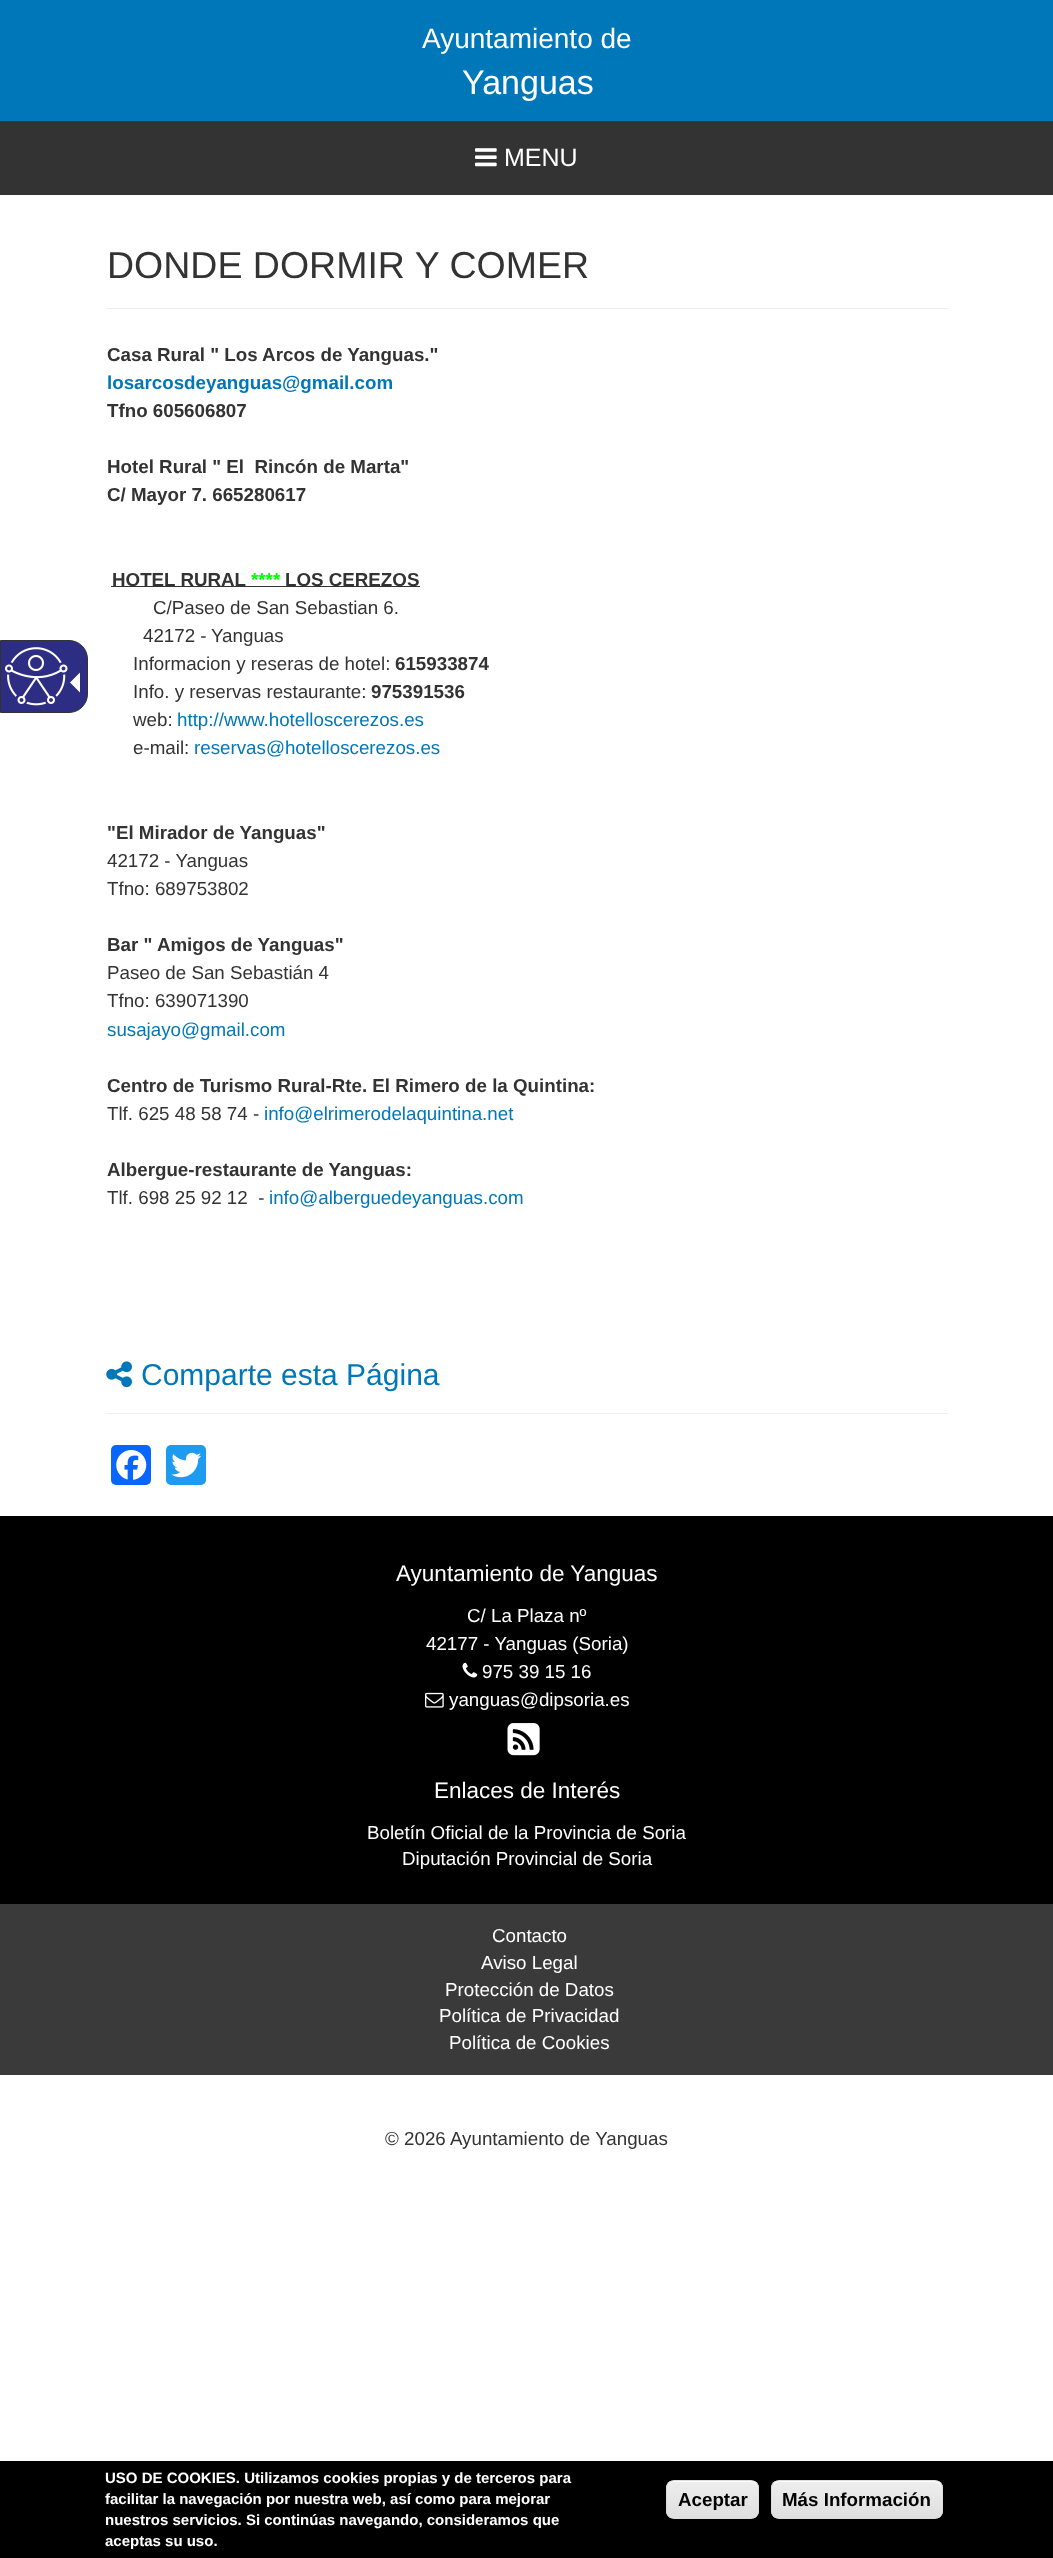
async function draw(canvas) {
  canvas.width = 1053;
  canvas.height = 2558;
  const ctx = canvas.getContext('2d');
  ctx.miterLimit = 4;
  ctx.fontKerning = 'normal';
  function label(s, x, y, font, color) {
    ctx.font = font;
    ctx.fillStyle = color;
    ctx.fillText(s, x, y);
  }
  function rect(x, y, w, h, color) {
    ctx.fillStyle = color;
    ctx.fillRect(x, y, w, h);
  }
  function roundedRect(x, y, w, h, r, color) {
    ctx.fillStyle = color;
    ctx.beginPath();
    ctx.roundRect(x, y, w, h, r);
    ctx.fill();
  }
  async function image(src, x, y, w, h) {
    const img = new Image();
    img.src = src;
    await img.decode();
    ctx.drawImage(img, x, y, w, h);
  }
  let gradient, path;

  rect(0, 0, 1053, 2558, '#fff');
  rect(0, 0, 1053, 121, '#0077b9');
  label('Ayuntamiento de', 422, 48, '28px Liberation Sans', '#fff');
  label('Yanguas', 462, 94, '34px Liberation Sans', '#fff');
  rect(0, 121, 1053, 74, '#333');
  await image('assets/img1.png', 475, 148, 22, 19);
  label('MENU', 504, 166, '25px Liberation Sans', '#fff');
  ctx.fillStyle = '#2d2e83';
  ctx.beginPath();
  ctx.roundRect(0.5, 640.5, 87, 72, [0, 18.5, 18.5, 0]);
  ctx.fill();
  ctx.strokeStyle = '#333';
  ctx.stroke();
  await image('assets/img2.png', 5, 647, 63, 59);
  ctx.fillStyle = '#fff';
  path = new Path2D('M80 672.5V692.5L70 682.5Z');
  ctx.fill(path);
  rect(106, 308, 842, 1, '#eee');
  label('DONDE DORMIR Y COMER', 107, 278, '37.5px Liberation Sans', '#333');
  label('Casa Rural " Los Arcos de Yanguas."', 107, 361, 'bold 18.75px Liberation Sans', '#333');
  label('losarcosdeyanguas@gmail.com', 107, 389, 'bold 18.75px Liberation Sans', '#0077b9');
  label('Tfno 605606807', 107, 417, 'bold 18.75px Liberation Sans', '#333');
  label('Hotel Rural " El  Rincón de Marta"', 107, 473, 'bold 18.75px Liberation Sans', '#333');
  label('C/ Mayor 7. 665280617', 107, 501, 'bold 18.75px Liberation Sans', '#333');
  rect(111, 586, 309, 1, '#333');
  label('HOTEL RURAL', 112, 586, 'bold 18.75px Liberation Sans', '#333');
  label('****', 251, 586, 'bold 18.75px Liberation Sans', '#0f0');
  label('LOS CEREZOS', 285, 586, 'bold 18.75px Liberation Sans', '#333');
  label('C/Paseo de San Sebastian 6.', 153, 614, '18.75px Liberation Sans', '#333');
  label('42172 -', 143, 642, '18.75px Liberation Sans', '#333');
  label('Yanguas', 211, 642, '18.75px Liberation Sans', '#333');
  label('Informacion y reseras de hotel:', 133, 670, '18.75px Liberation Sans', '#333');
  label('615933874', 395, 670, 'bold 18.75px Liberation Sans', '#333');
  label('Info. y reservas restaurante:', 133, 698, '18.75px Liberation Sans', '#333');
  label('975391536', 371, 698, 'bold 18.75px Liberation Sans', '#333');
  label('web:', 133, 726, '18.75px Liberation Sans', '#333');
  label('http://www.hotelloscerezos.es', 177, 726, '18.75px Liberation Sans', '#0077b9');
  label('e-mail:', 133, 754, '18.75px Liberation Sans', '#333');
  label('reservas@hotelloscerezos.es', 194, 754, '18.75px Liberation Sans', '#0077b9');
  label('"El Mirador de Yanguas"', 107, 839, 'bold 18.75px Liberation Sans', '#333');
  label('42172 - Yanguas', 107, 867, '18.75px Liberation Sans', '#333');
  label('Tfno: 689753802', 107, 895, '18.75px Liberation Sans', '#333');
  label('Bar " Amigos de Yanguas"', 107, 951, 'bold 18.75px Liberation Sans', '#333');
  label('Paseo de San Sebastián 4', 107, 979, '18.75px Liberation Sans', '#333');
  label('Tfno: 639071390', 107, 1007, '18.75px Liberation Sans', '#333');
  label('susajayo@gmail.com', 107, 1036, '18.75px Liberation Sans', '#0077b9');
  label('Centro de Turismo Rural-Rte. El Rimero de la Quintina:', 107, 1092, 'bold 18.75px Liberation Sans', '#333');
  label('Tlf. 625 48 58 74 -', 107, 1120, '18.75px Liberation Sans', '#333');
  label('info@elrimerodelaquintina.net', 264, 1120, '18.75px Liberation Sans', '#0077b9');
  label('Albergue-restaurante de Yanguas:', 107, 1176, 'bold 18.75px Liberation Sans', '#333');
  label('Tlf. 698 25 92 12  -', 107, 1204, '18.75px Liberation Sans', '#333');
  label('info@alberguedeyanguas.com', 269, 1204, '18.75px Liberation Sans', '#0077b9');
  rect(106, 1413, 842, 1, '#eee');
  await image('assets/img3.png', 106, 1361, 26, 27);
  label('Comparte esta Página', 141, 1385, '30px Liberation Sans', '#0077b9');
  roundedRect(111, 1445, 40, 40, 5, '#0866ff');
  await image('assets/img4.png', 116, 1450, 31, 30);
  roundedRect(166, 1445, 40, 40, 5, '#1d9bf0');
  await image('assets/img5.png', 171, 1452, 31, 26);
  rect(0, 1516, 1053, 388, '#000');
  label('Ayuntamiento de Yanguas', 396, 1581, '22.5px Liberation Sans', '#fff');
  label('C/ La Plaza nº', 467, 1622, '18.75px Liberation Sans', '#fff');
  label('42177 - Yanguas (Soria)', 426, 1650, '18.75px Liberation Sans', '#fff');
  await image('assets/img6.png', 462, 1662, 16, 16);
  label('975 39 15 16', 482, 1678, '18.75px Liberation Sans', '#fff');
  await image('assets/img7.png', 425, 1692, 19, 16);
  label('yanguas@dipsoria.es', 449, 1706, '18.75px Liberation Sans', '#fff');
  await image('assets/img8.png', 507, 1723, 33, 33);
  label('Enlaces de Interés', 434, 1798, '22.5px Liberation Sans', '#fff');
  label('Boletín Oficial de la Provincia de Soria', 367, 1839, '18.75px Liberation Sans', '#fff');
  label('Diputación Provincial de Soria', 402, 1865, '18.75px Liberation Sans', '#fff');
  rect(0, 1904, 1053, 171, '#3a3a3a');
  label('Contacto', 492, 1942, '18.75px Liberation Sans', '#fff');
  label('Aviso Legal', 481, 1969, '18.75px Liberation Sans', '#fff');
  label('Protección de Datos', 445, 1996, '18.75px Liberation Sans', '#fff');
  label('Política de Privacidad', 439, 2022, '18.75px Liberation Sans', '#fff');
  label('Política de Cookies', 449, 2049, '18.75px Liberation Sans', '#fff');
  label('© 2026 Ayuntamiento de Yanguas', 385, 2145, '18.75px Liberation Sans', '#333');
  rect(0, 2461, 1053, 97, '#000');
  label('USO DE COOKIES. Utilizamos cookies propias y de terceros para', 105, 2483, 'bold 15px Liberation Sans', '#fff');
  label('facilitar la navegación por nuestra web, así como para mejorar', 105, 2504, 'bold 15px Liberation Sans', '#fff');
  label('nuestros servicios. Si continúas navegando, consideramos que', 105, 2525, 'bold 15px Liberation Sans', '#fff');
  label('aceptas su uso.', 105, 2546, 'bold 15px Liberation Sans', '#fff');
  ctx.save();
  ctx.beginPath();
  ctx.roundRect(666, 2480, 93, 39, 8);
  ctx.clip();
  gradient = ctx.createLinearGradient(713, 2481, 713, 2518);
  gradient.addColorStop(0.05, '#ededed');
  gradient.addColorStop(1, '#dfdfdf');
  ctx.fillStyle = gradient;
  ctx.fillRect(666, 2481, 93, 37);
  ctx.restore();
  path = new Path2D('M674 2482H751C755 2482 758 2485 758 2489C758 2478 748 2481 739 2481H687C678 2481 668 2478 668 2489C668 2485 670 2482 674 2482Z');
  ctx.fill(path);
  ctx.beginPath();
  ctx.roundRect(666.5, 2480.5, 92, 38, 7.5);
  ctx.strokeStyle = '#dcdcdc';
  ctx.stroke();
  label('Aceptar', 678, 2506, 'bold 18.75px Liberation Sans', '#000');
  ctx.save();
  ctx.beginPath();
  ctx.roundRect(771, 2480, 172, 39, 8);
  ctx.clip();
  gradient = ctx.createLinearGradient(857, 2481, 857, 2518);
  gradient.addColorStop(0.05, '#ededed');
  gradient.addColorStop(1, '#dfdfdf');
  ctx.fillStyle = gradient;
  ctx.fillRect(771, 2481, 172, 37);
  ctx.restore();
  ctx.fillStyle = '#fff';
  path = new Path2D('M779 2482H935C938 2482 941 2485 941 2489V2487C941 2484 938 2481 935 2481H779C777 2481 774 2482 774 2485C775 2483 777 2482 779 2482Z');
  ctx.fill(path);
  ctx.beginPath();
  ctx.roundRect(771.5, 2480.5, 171, 38, 7.5);
  ctx.stroke();
  label('Más Información', 782, 2506, 'bold 18.75px Liberation Sans', '#000');
}

draw(document.querySelector('canvas'));
